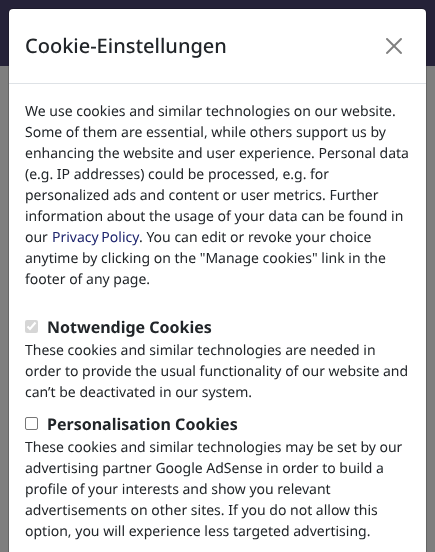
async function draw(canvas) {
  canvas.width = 435;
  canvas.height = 552;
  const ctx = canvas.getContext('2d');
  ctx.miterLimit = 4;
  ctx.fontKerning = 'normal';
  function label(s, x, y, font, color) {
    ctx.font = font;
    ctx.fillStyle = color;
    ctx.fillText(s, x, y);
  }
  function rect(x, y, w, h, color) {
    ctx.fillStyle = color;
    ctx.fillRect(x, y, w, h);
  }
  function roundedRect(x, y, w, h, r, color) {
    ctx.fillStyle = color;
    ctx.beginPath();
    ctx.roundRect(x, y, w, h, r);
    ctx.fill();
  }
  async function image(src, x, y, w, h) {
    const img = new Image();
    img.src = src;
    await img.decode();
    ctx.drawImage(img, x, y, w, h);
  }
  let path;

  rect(0, 0, 435, 552, '#7e7e7e');
  rect(0, 0, 435, 66, '#252238');
  ctx.fillStyle = '#fff';
  ctx.beginPath();
  ctx.roundRect(9, 9, 417, 543, [4, 4, 0, 0]);
  ctx.fill();
  ctx.beginPath();
  ctx.roundRect(8.5, 8.5, 418, 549, 4.5);
  ctx.strokeStyle = '#00000033';
  ctx.stroke();
  rect(9, 83, 417, 1, '#dee2e6');
  label('Cookie-Einstellungen', 25, 53, '500 20px Noto Sans', '#212529');
  await image('assets/img1.png', 386, 38, 16, 16);
  label('We use cookies and similar technologies on our website.', 25, 116, '14px Noto Sans', '#212529');
  label('Some of them are essential, while others support us by', 25, 137, '14px Noto Sans', '#212529');
  label('enhancing the website and user experience. Personal data', 25, 158, '14px Noto Sans', '#212529');
  label('(e.g. IP addresses) could be processed, e.g. for', 25, 179, '14px Noto Sans', '#212529');
  label('personalized ads and content or user metrics. Further', 25, 200, '14px Noto Sans', '#212529');
  label('information about the usage of your data can be found in', 25, 221, '14px Noto Sans', '#212529');
  label('our', 25, 242, '14px Noto Sans', '#212529');
  ctx.wordSpacing = '-1px';
  label('Privacy Policy', 52, 242, '14px Noto Sans', '#1d246c');
  ctx.wordSpacing = '0px';
  label('. You can edit or revoke your choice', 139, 242, '14px Noto Sans', '#212529');
  label('anytime by clicking on the "Manage cookies" link in the', 25, 263, '14px Noto Sans', '#212529');
  label('footer of any page.', 25, 284, '14px Noto Sans', '#212529');
  roundedRect(25, 320, 13, 13, 2, '#d6d6d6');
  path = new Path2D('M27.5 326.5L30 329L35.5 322.5');
  ctx.strokeStyle = '#fff';
  ctx.lineWidth = 2.1;
  ctx.stroke(path);
  label('Notwendige Cookies', 47, 333, 'bold 16px Noto Sans', '#212529');
  label('These cookies and similar technologies are needed in', 25, 355, '14px Noto Sans', '#212529');
  label('order to provide the usual functionality of our website and', 25, 376, '14px Noto Sans', '#212529');
  label('can’t be deactivated in our system.', 25, 397, '14px Noto Sans', '#212529');
  ctx.beginPath();
  ctx.roundRect(25.5, 417.5, 12, 12, 1.5);
  ctx.strokeStyle = '#767676';
  ctx.lineWidth = 1;
  ctx.stroke();
  label('Personalisation Cookies', 47, 430, 'bold 16px Noto Sans', '#212529');
  label('These cookies and similar technologies may be set by our', 25, 452, '14px Noto Sans', '#212529');
  label('advertising partner Google AdSense in order to build a', 25, 473, '14px Noto Sans', '#212529');
  label('profile of your interests and show you relevant', 25, 494, '14px Noto Sans', '#212529');
  label('advertisements on other sites. If you do not allow this', 25, 515, '14px Noto Sans', '#212529');
  label('option, you will experience less targeted advertising.', 25, 536, '14px Noto Sans', '#212529');
}

draw(document.querySelector('canvas'));
